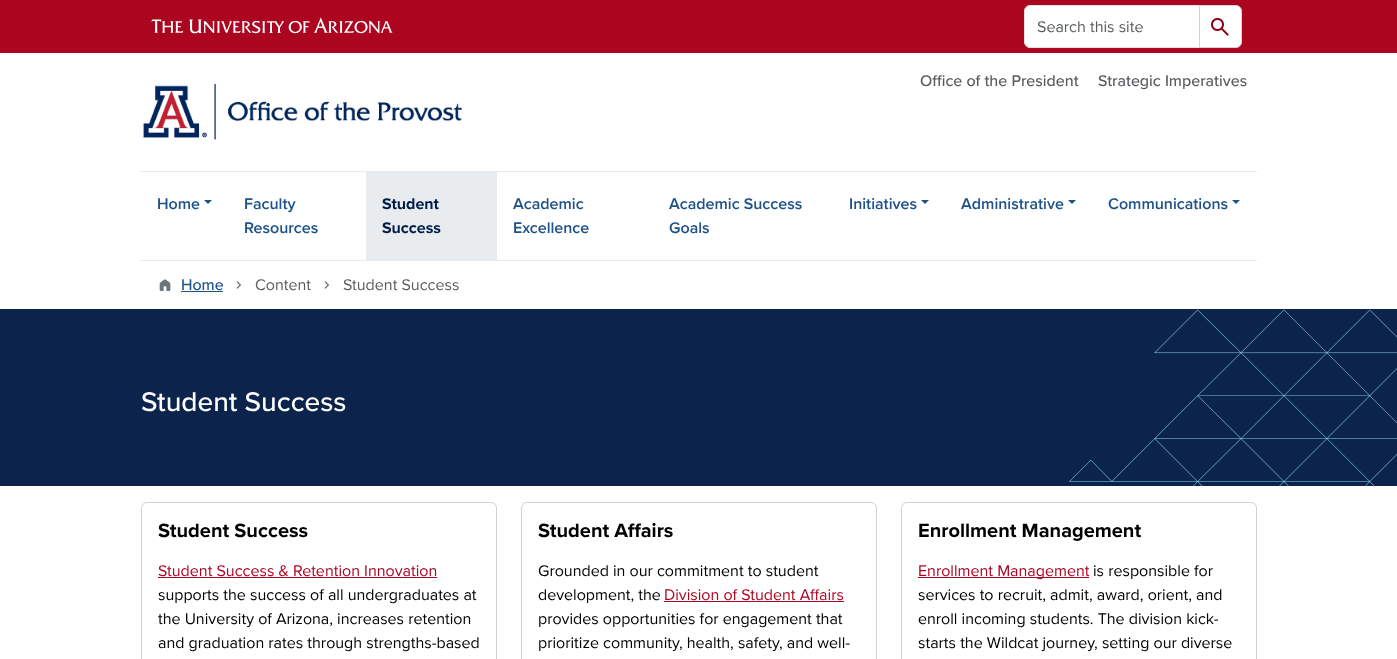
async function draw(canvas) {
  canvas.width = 1397;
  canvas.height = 659;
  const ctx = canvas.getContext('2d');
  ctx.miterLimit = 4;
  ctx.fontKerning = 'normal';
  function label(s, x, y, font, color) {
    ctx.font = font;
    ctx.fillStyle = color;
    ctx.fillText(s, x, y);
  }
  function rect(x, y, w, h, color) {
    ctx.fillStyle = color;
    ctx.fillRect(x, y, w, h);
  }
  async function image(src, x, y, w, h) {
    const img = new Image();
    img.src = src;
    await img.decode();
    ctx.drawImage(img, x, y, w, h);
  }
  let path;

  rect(0, 0, 1397, 659, '#fff');
  rect(0, 0, 1397, 53, '#ab0520');
  await image('assets/img1.png', 151, 17, 242, 17);
  ctx.fillStyle = '#fff';
  ctx.beginPath();
  ctx.roundRect(1024.5, 5.5, 175, 42, [5.5, 0, 0, 5.5]);
  ctx.fill();
  ctx.strokeStyle = '#dee2e6';
  ctx.stroke();
  label('Search this site', 1037, 32, '16px Proxima Nova', '#595c5f');
  ctx.fillStyle = '#fff';
  ctx.beginPath();
  ctx.roundRect(1199.5, 5.5, 42, 42, [0, 5.5, 5.5, 0]);
  ctx.fill();
  ctx.strokeStyle = '#ced4da';
  ctx.stroke();
  await image('assets/img2.png', 1211, 18, 18, 18);
  label('Office of the President', 920, 86, '500 16px Proxima Nova', '#595c5f');
  label('Strategic Imperatives', 1098, 86, '500 16px Proxima Nova', '#595c5f');
  await image('assets/img3.png', 143, 84, 320, 56);
  rect(141, 171, 1116, 1, '#e9ecef');
  rect(141, 260, 1116, 1, '#e9ecef');
  label('Home', 157, 209, '600 16px Proxima Nova', '#1e5288');
  path = new Path2D('M204 200H212L208 204Z');
  ctx.fill(path);
  label('Faculty', 244, 209, '600 16px Proxima Nova', '#1e5288');
  label('Resources', 244, 233, '600 16px Proxima Nova', '#1e5288');
  rect(366, 172, 131, 88, '#e9ecef');
  label('Student', 382, 209, 'bold 16px Proxima Nova', '#001c48');
  label('Success', 382, 233, 'bold 16px Proxima Nova', '#001c48');
  label('Academic', 513, 209, '600 16px Proxima Nova', '#1e5288');
  label('Excellence', 513, 233, '600 16px Proxima Nova', '#1e5288');
  label('Academic Success', 669, 209, '600 16px Proxima Nova', '#1e5288');
  label('Goals', 669, 233, '600 16px Proxima Nova', '#1e5288');
  label('Initiatives', 849, 209, '600 16px Proxima Nova', '#1e5288');
  path = new Path2D('M921 200H929L925 204Z');
  ctx.fill(path);
  label('Administrative', 961, 209, '600 16px Proxima Nova', '#1e5288');
  path = new Path2D('M1068 200H1076L1072 204Z');
  ctx.fill(path);
  label('Communications', 1108, 209, '600 16px Proxima Nova', '#1e5288');
  path = new Path2D('M1232 200H1240L1236 204Z');
  ctx.fill(path);
  await image('assets/img4.png', 159, 279, 12, 12);
  label('Home', 181, 290, '500 16px Proxima Nova', '#1e5288');
  rect(181, 291, 42, 1, '#1e5288');
  await image('assets/img5.png', 236, 281, 5, 8);
  label('Content', 255, 290, '16px Proxima Nova', '#595c5f');
  await image('assets/img5.png', 324, 281, 5, 8);
  label('Student Success', 343, 290, '16px Proxima Nova', '#595c5f');
  rect(0, 309, 1397, 177, '#0c234b');
  await image('assets/img6.png', 1068, 309, 329, 177);
  label('Student Success', 141, 411, '500 28px Proxima Nova', '#fff');
  ctx.beginPath();
  ctx.roundRect(141.5, 502.5, 355, 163, 5.5);
  ctx.strokeStyle = '#d2d2d2';
  ctx.stroke();
  label('Student Success', 158, 537, 'bold 20px Proxima Nova', '#000');
  label('Student Success & Retention Innovation', 158, 576, '16px Proxima Nova', '#ab0520');
  rect(158, 577, 279, 1, '#ab0520');
  label('supports the success of all undergraduates at', 158, 600, '16px Proxima Nova', '#000');
  label('the University of Arizona, increases retention', 158, 624, '16px Proxima Nova', '#000');
  label('and graduation rates through strengths-based', 158, 648, '16px Proxima Nova', '#000');
  ctx.beginPath();
  ctx.roundRect(521.5, 502.5, 355, 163, 5.5);
  ctx.stroke();
  label('Student Affairs', 538, 537, 'bold 20px Proxima Nova', '#000');
  label('Grounded in our commitment to student', 538, 576, '16px Proxima Nova', '#000');
  label('development, the', 538, 600, '16px Proxima Nova', '#000');
  label('Division of Student Affairs', 664, 600, '16px Proxima Nova', '#ab0520');
  rect(664, 601, 180, 1, '#ab0520');
  label('provides opportunities for engagement that', 538, 624, '16px Proxima Nova', '#000');
  label('prioritize community, health, safety, and well-', 538, 648, '16px Proxima Nova', '#000');
  ctx.beginPath();
  ctx.roundRect(901.5, 502.5, 355, 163, 5.5);
  ctx.stroke();
  label('Enrollment Management', 918, 537, 'bold 20px Proxima Nova', '#000');
  rect(918, 577, 171, 1, '#ab0520');
  label('Enrollment Management', 918, 576, '16px Proxima Nova', '#ab0520');
  label('is responsible for', 1093, 576, '16px Proxima Nova', '#000');
  label('services to recruit, admit, award, orient, and', 918, 600, '16px Proxima Nova', '#000');
  label('enroll incoming students. The division kick-', 918, 624, '16px Proxima Nova', '#000');
  label('starts the Wildcat journey, setting our diverse', 918, 648, '16px Proxima Nova', '#000');
}

draw(document.querySelector('canvas'));
